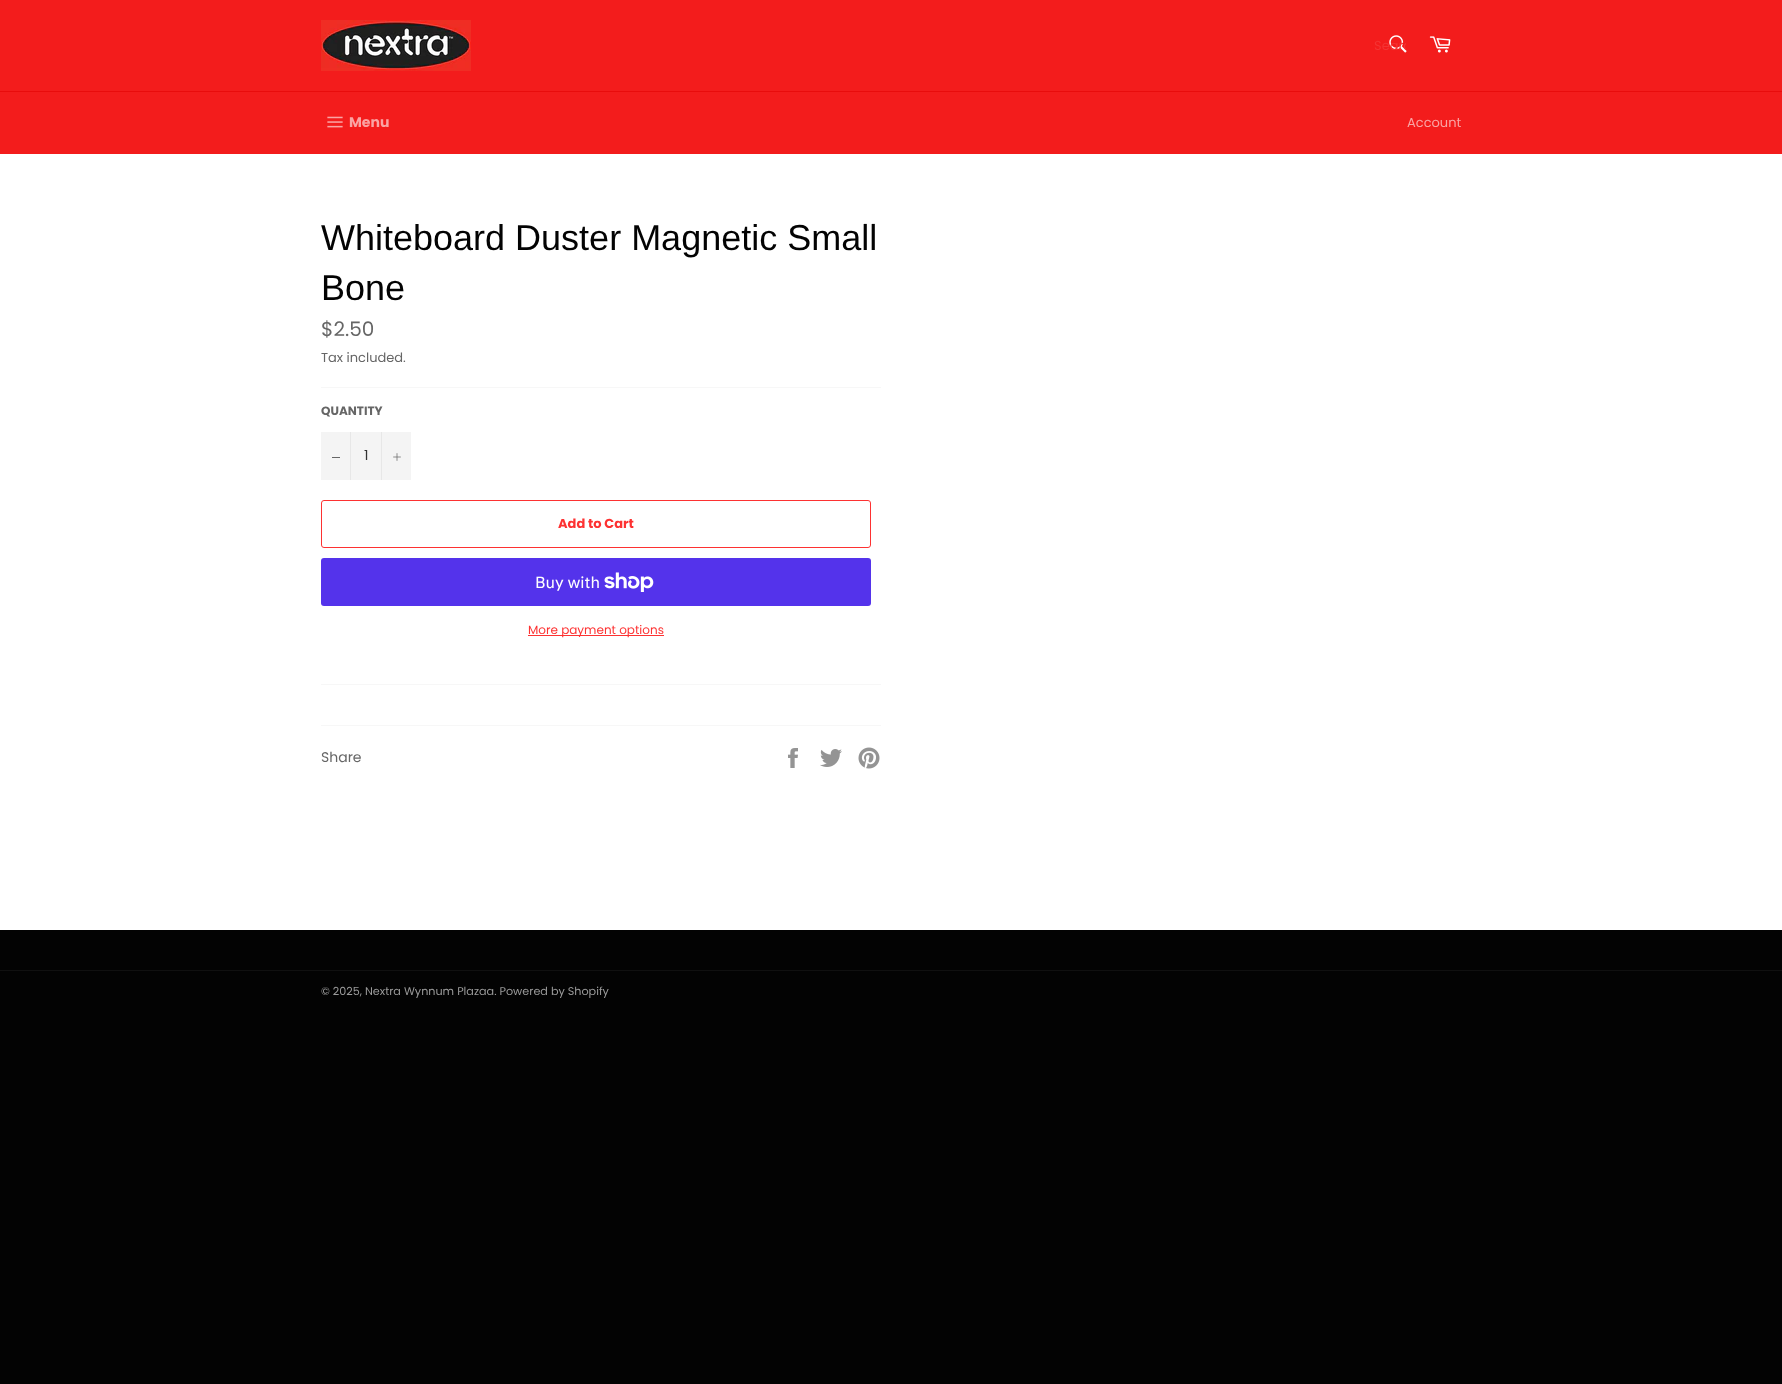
async function draw(canvas) {
  canvas.width = 1782;
  canvas.height = 1384;
  const ctx = canvas.getContext('2d');
  ctx.miterLimit = 4;
  ctx.fontKerning = 'normal';
  function label(s, x, y, font, color) {
    ctx.font = font;
    ctx.fillStyle = color;
    ctx.fillText(s, x, y);
  }
  function rect(x, y, w, h, color) {
    ctx.fillStyle = color;
    ctx.fillRect(x, y, w, h);
  }
  function roundedRect(x, y, w, h, r, color) {
    ctx.fillStyle = color;
    ctx.beginPath();
    ctx.roundRect(x, y, w, h, r);
    ctx.fill();
  }
  async function image(src, x, y, w, h) {
    const img = new Image();
    img.src = src;
    await img.decode();
    ctx.drawImage(img, x, y, w, h);
  }

  rect(0, 0, 1782, 1384, '#030303');
  rect(0, 0, 1782, 91, '#f31c1c');
  await image('assets/img1.png', 321, 20, 150, 51);
  await image('assets/img2.png', 1389, 35, 18, 18);
  ctx.save();
  ctx.beginPath();
  ctx.rect(1374, 36, 32, 20);
  ctx.clip();
  label('Searc', 1374, 50, '13px Poppins', '#f43333');
  ctx.restore();
  await image('assets/img3.png', 1429, 36, 22, 17);
  rect(0, 92, 1782, 62, '#f31c1c');
  rect(0, 91, 1782, 1, '#e90c0c');
  await image('assets/img4.png', 327, 116, 16, 12);
  label('Menu', 349, 127, 'bold 14px Poppins', '#faa4a4');
  label('Account', 1407, 127, '13px Poppins', '#faa4a4');
  rect(0, 154, 1782, 776, '#fff');
  label('Whiteboard Duster Magnetic Small', 321, 250, '36px Arimo', '#030303');
  label('Bone', 321, 300, '36px Arimo', '#030303');
  label('$2.50', 321, 336, '20px Poppins', '#666');
  label('Tax included.', 321, 362, '13px Poppins', '#666');
  rect(321, 387, 560, 1, '#f7f7f7');
  label('QUANTITY', 321, 415, 'bold 12px Poppins', '#666');
  rect(321, 432, 90, 48, '#f4f4f4');
  rect(350, 432, 1, 48, '#e7e7e7');
  rect(332, 457, 8, 1, '#666');
  label('1', 364, 460, '14px Poppins', '#333');
  rect(381, 432, 1, 48, '#e7e7e7');
  await image('assets/img5.png', 393, 453, 8, 8);
  ctx.beginPath();
  ctx.roundRect(321.5, 500.5, 549, 47, 2.5);
  ctx.strokeStyle = '#fd3232';
  ctx.stroke();
  label('Add to Cart', 558, 528, 'bold 13px Poppins', '#fd3232');
  roundedRect(321, 558, 550, 48, 3, '#5433eb');
  label('Buy with', 535, 588, '16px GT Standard', '#fff');
  await image('assets/img6.png', 604, 572, 50, 20);
  rect(528, 635, 136, 1, '#fd3232');
  label('More payment options', 528, 634, '12px Poppins', '#fd3232');
  rect(321, 684, 560, 1, '#f7f7f7');
  rect(321, 725, 560, 1, '#f7f7f7');
  label('Share', 321, 762, '14px Poppins', '#666');
  await image('assets/img7.png', 788, 748, 10, 20);
  await image('assets/img8.png', 820, 749, 22, 18);
  await image('assets/img9.png', 858, 747, 22, 22);
  rect(0, 970, 1782, 1, '#101010');
  label('© 2025, Nextra Wynnum Plazaa. Powered by Shopify', 321, 995, '11.2px Poppins', '#9a9a9a');
}

draw(document.querySelector('canvas'));
